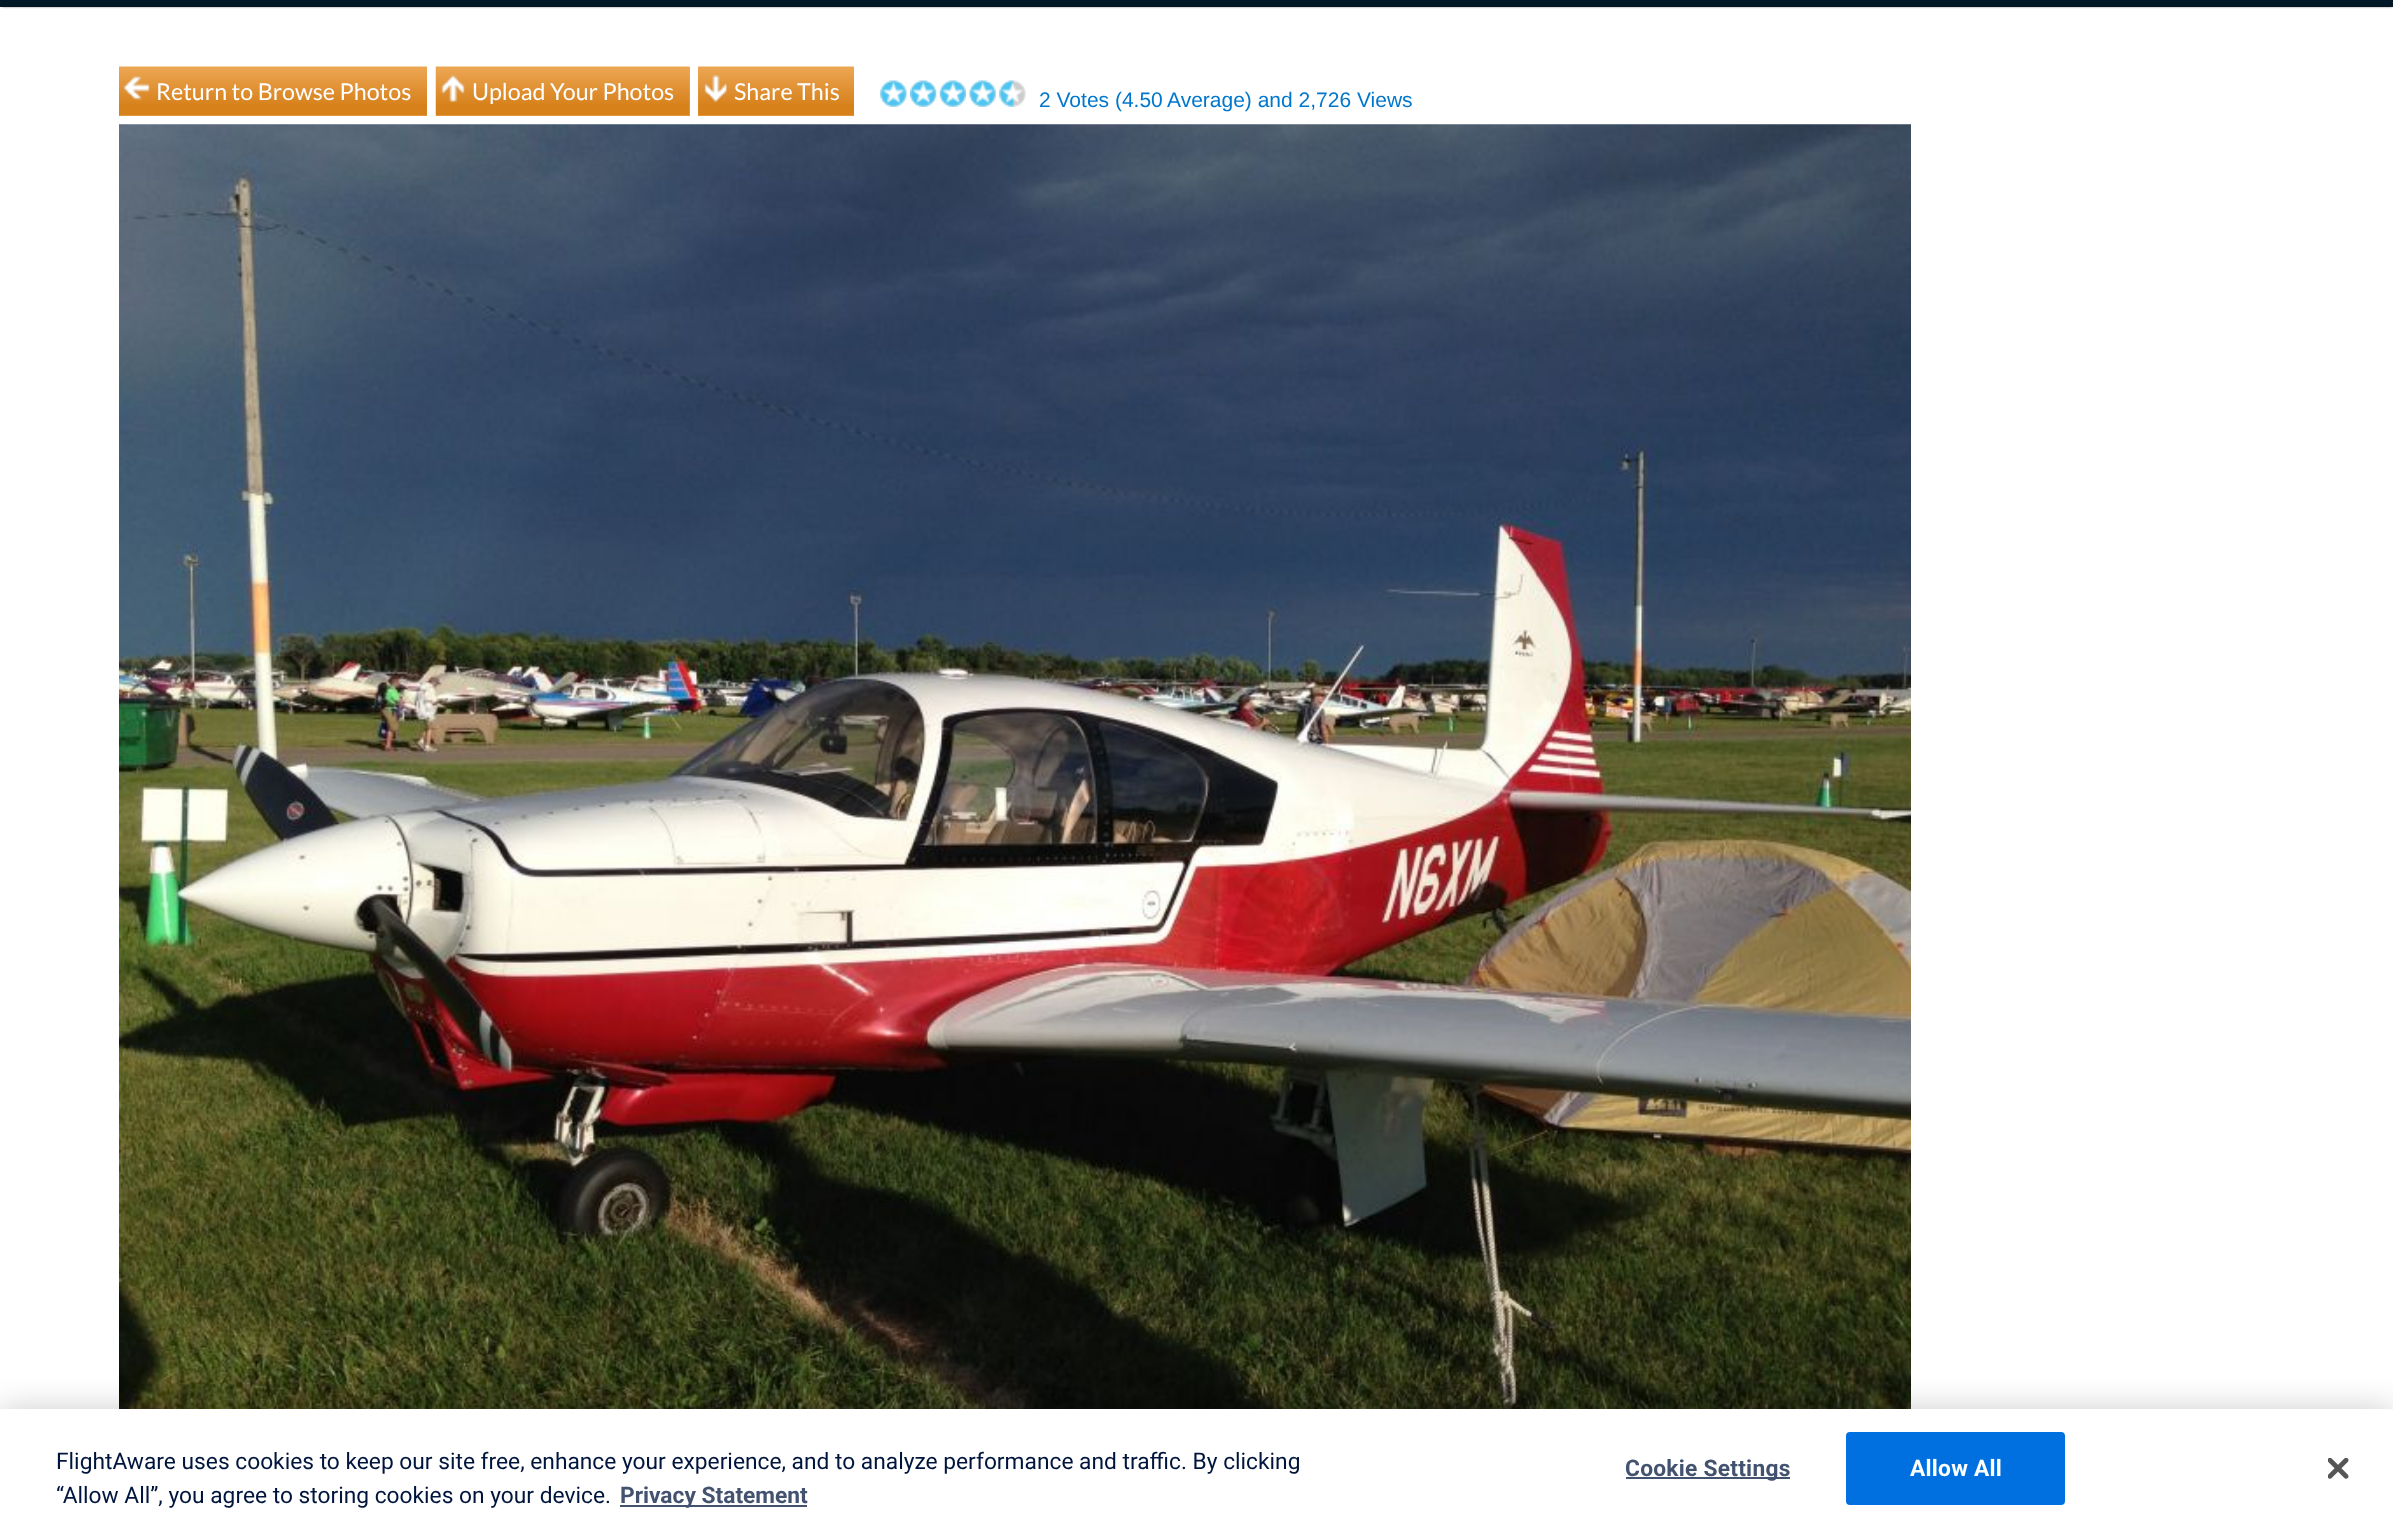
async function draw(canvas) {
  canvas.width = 2393;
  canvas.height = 1533;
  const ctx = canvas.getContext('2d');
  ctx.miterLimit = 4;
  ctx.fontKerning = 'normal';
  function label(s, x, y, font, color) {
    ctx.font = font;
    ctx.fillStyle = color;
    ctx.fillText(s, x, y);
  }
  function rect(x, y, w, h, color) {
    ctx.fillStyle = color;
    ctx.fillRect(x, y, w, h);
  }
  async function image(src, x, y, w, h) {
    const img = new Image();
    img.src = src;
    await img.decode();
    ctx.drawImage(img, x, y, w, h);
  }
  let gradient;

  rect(0, 0, 2393, 1533, '#fff');
  ctx.fillStyle = '#888';
  ctx.filter = 'blur(1px)';
  ctx.beginPath();
  ctx.rect(2, -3, 2390, 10);
  ctx.fill();
  ctx.filter = 'none';
  gradient = ctx.createLinearGradient(1197, -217, 1197, 7);
  gradient.addColorStop(0, '#002f5d');
  gradient.addColorStop(0.6, '#002f5d');
  gradient.addColorStop(1, '#021624');
  ctx.fillStyle = gradient;
  ctx.fillRect(0, 0, 2393, 7);
  rect(119, 115, 308, 1, '#eda653');
  await image('assets/img1.png', 119, 66, 308, 50);
  await image('assets/img2.png', 123, 76, 27, 25);
  label('Return to Browse Photos', 156, 100, '23.25px Lato', '#fff');
  rect(436, 67, 254, 49, '#eda653');
  await image('assets/img3.png', 435, 66, 255, 50);
  await image('assets/img4.png', 440, 75, 25, 27);
  label('Upload Your Photos', 472, 100, '23.25px Lato', '#fff');
  rect(698, 67, 156, 49, '#eda653');
  await image('assets/img5.png', 698, 66, 156, 50);
  await image('assets/img6.png', 703, 75, 24, 27);
  label('Share This', 734, 100, '23.25px Lato', '#fff');
  await image('assets/img7.png', 880, 80, 27, 27);
  await image('assets/img8.png', 910, 80, 27, 27);
  await image('assets/img9.png', 939, 80, 27, 27);
  await image('assets/img10.png', 969, 80, 27, 27);
  await image('assets/img11.png', 999, 80, 27, 27);
  label('2 Votes (4.50', 1039, 107, '21px Liberation Sans', '#07c');
  label('Average) and 2,726 Views', 1167, 107, '21px Liberation Sans', '#07c');
  await image('assets/img12.png', 119, 124, 1792, 1285);
  ctx.fillStyle = '#00000033';
  ctx.filter = 'blur(16px)';
  ctx.beginPath();
  ctx.rect(0, 1409, 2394, 124);
  ctx.fill();
  ctx.filter = 'none';
  rect(0, 1409, 2393, 124, '#fff');
  label('FlightAware uses cookies to keep our site free, enhance your experience, and to analyze performance and traffic. By clicking', 56, 1469, '22.75px Roboto', '#00153d');
  label('“Allow All”, you agree to storing cookies on your device.', 56, 1503, '22.75px Roboto', '#00153d');
  rect(620, 1505, 187, 2, '#42526f');
  label('Privacy Statement', 620, 1503, 'bold 22.75px Roboto', '#42526f');
  rect(1626, 1477, 164, 2, '#42526f');
  ctx.letterSpacing = '0.25px';
  label('Cookie Settings', 1625, 1476, 'bold 22.75px Roboto', '#42526f');
  ctx.fillStyle = '#0070e0';
  ctx.beginPath();
  ctx.roundRect(1847, 1433, 217, 71, 3);
  ctx.fill();
  ctx.strokeStyle = '#0070e0';
  ctx.lineWidth = 2;
  ctx.stroke();
  label('Allow All', 1910, 1476, 'bold 22.75px Roboto', '#fff');
  await image('assets/img13.png', 2328, 1458, 21, 21);
}

draw(document.querySelector('canvas'));
